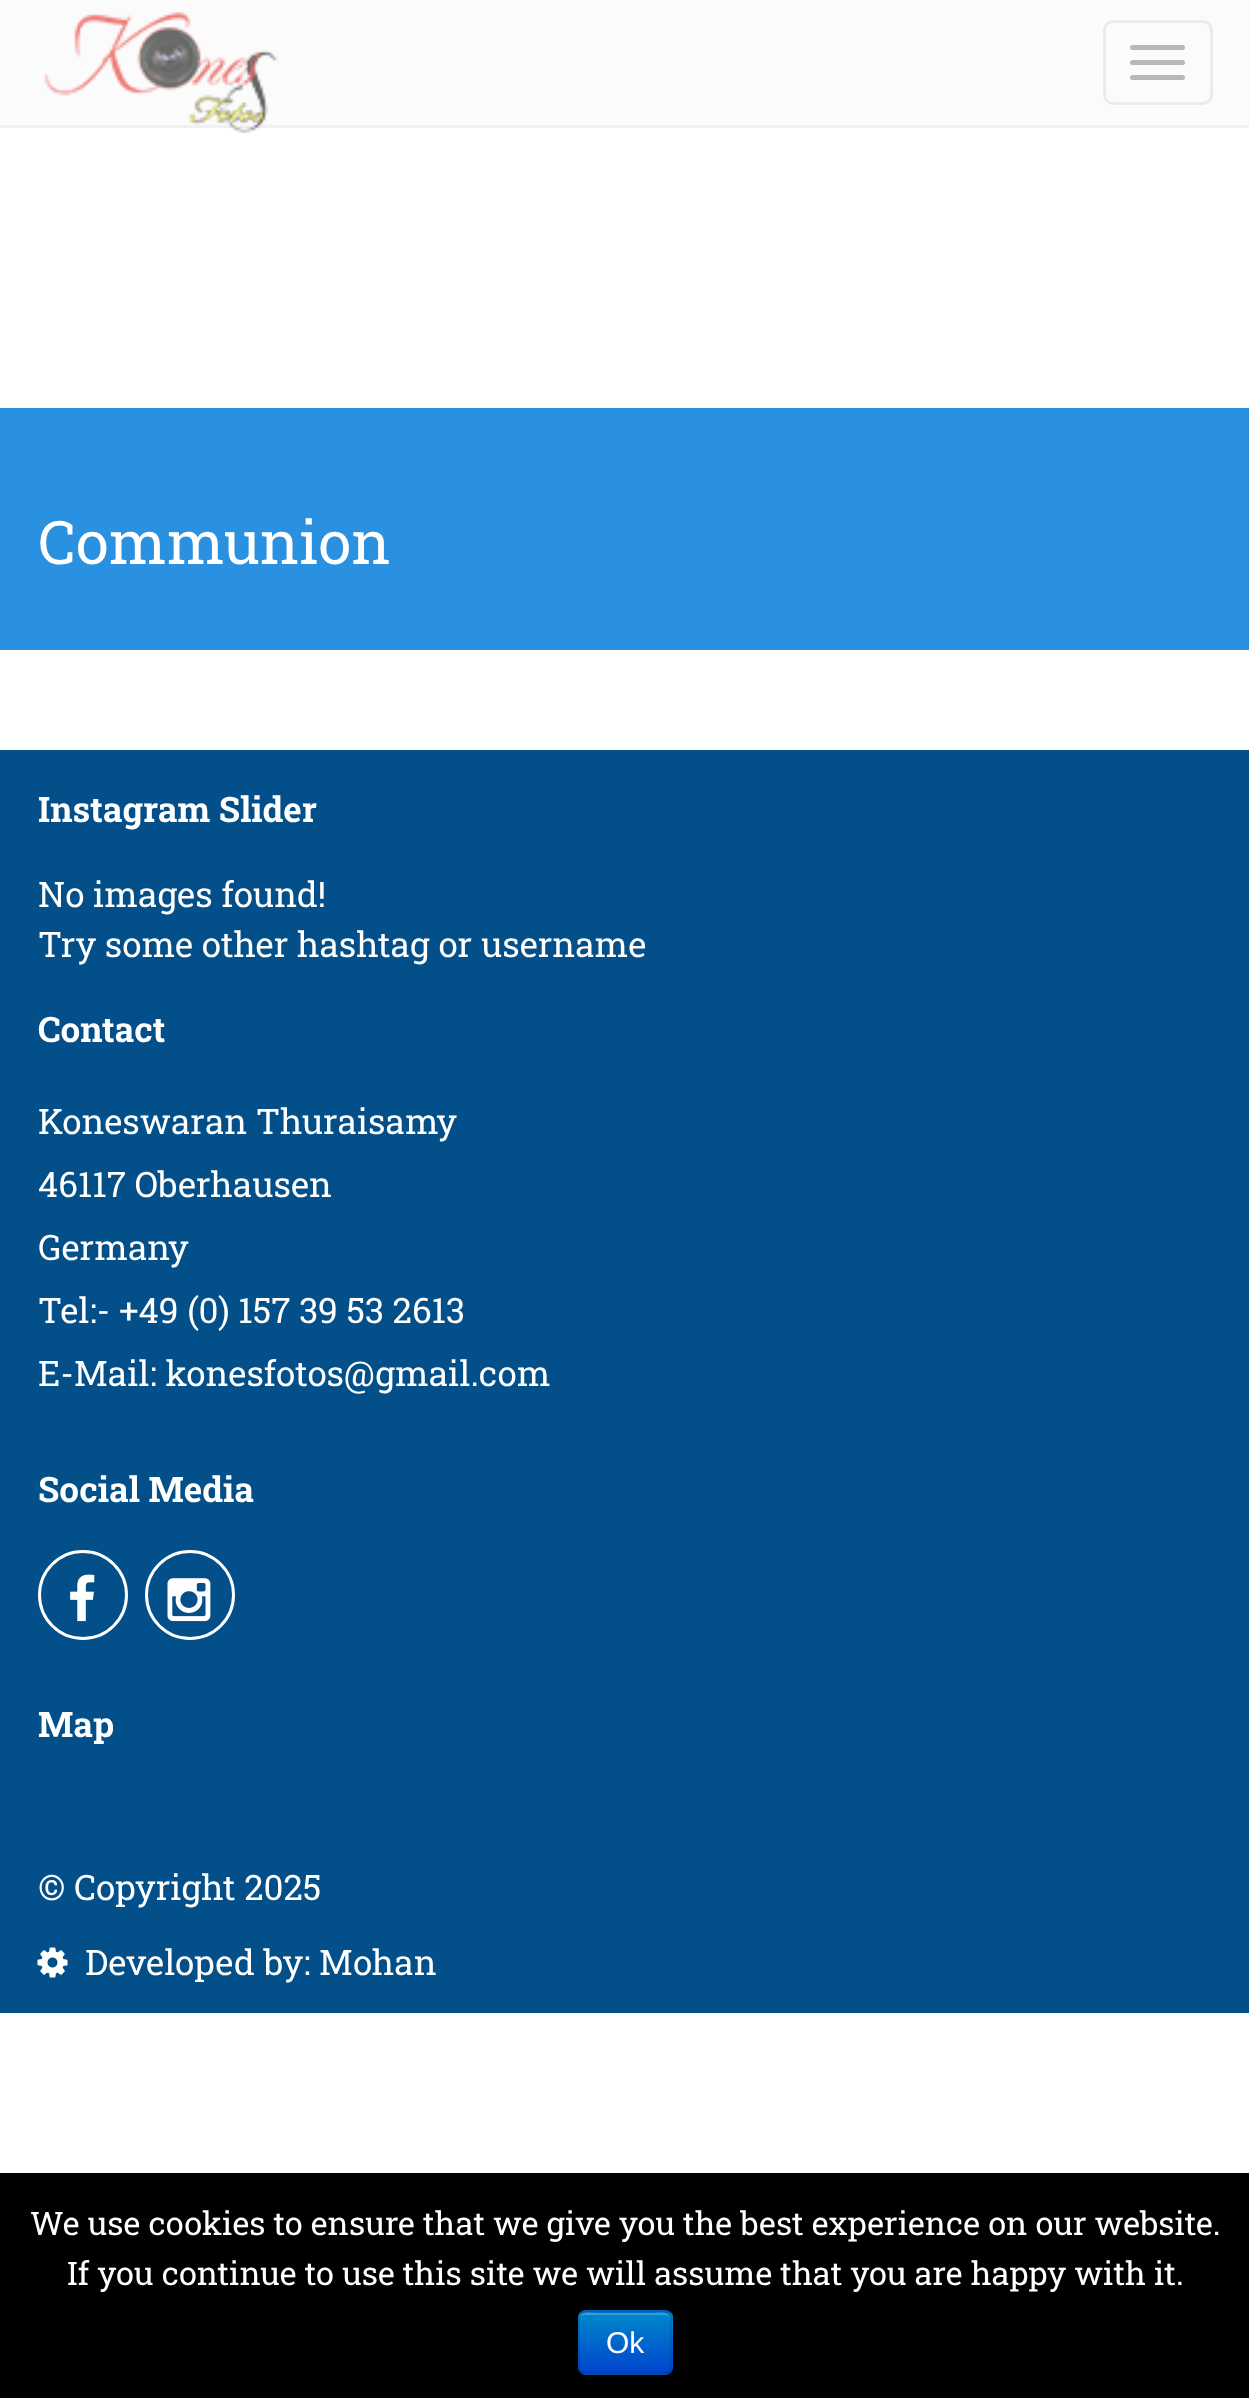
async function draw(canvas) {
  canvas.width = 1249;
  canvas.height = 2398;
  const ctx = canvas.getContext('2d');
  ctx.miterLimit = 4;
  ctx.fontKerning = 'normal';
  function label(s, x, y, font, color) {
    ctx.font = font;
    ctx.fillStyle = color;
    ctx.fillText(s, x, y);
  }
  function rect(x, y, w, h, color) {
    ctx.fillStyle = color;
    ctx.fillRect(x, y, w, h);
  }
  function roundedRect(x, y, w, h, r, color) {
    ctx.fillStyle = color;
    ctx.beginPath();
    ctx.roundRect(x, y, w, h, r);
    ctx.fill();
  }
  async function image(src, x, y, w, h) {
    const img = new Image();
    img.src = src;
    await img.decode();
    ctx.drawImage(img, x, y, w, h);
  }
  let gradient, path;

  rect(0, 0, 1249, 2398, '#fff');
  rect(0, 0, 1249, 125, '#fbfbfb');
  rect(0, 125, 1249, 3, '#f1f1f1');
  await image('assets/img1.png', 44, 11, 234, 123);
  ctx.beginPath();
  ctx.roundRect(1104.5, 21.5, 107, 82, 8.5);
  ctx.strokeStyle = '#ebebeb';
  ctx.lineWidth = 3;
  ctx.stroke();
  roundedRect(1130, 45, 55, 5, 2.5, '#b8b8b8');
  roundedRect(1130, 60, 55, 5, 2.5, '#b8b8b8');
  roundedRect(1130, 75, 55, 5, 2.5, '#b8b8b8');
  rect(0, 408, 1249, 242, '#2a91e0');
  label('Communion', 38, 564, '60px Roboto Slab', '#fff');
  rect(0, 750, 1249, 1263, '#024f89');
  label('Instagram Slider', 38, 822, 'bold 35px Roboto Slab', '#fff');
  label('No images found!', 38, 907, '35px Roboto Slab', '#fff');
  label('Try some other hashtag or username', 38, 957, '35px Roboto Slab', '#fff');
  label('Contact', 38, 1042, 'bold 35px Roboto Slab', '#fff');
  label('Koneswaran Thuraisamy', 38, 1134, '35px Roboto Slab', '#fff');
  label('46117 Oberhausen', 38, 1197, '35px Roboto Slab', '#fff');
  label('Germany', 38, 1260, '35px Roboto Slab', '#fff');
  label('Tel:- +49 (0) 157 39 53 2613', 38, 1323, '35px Roboto Slab', '#fff');
  label('E-Mail: konesfotos@gmail.com', 38, 1386, '35px Roboto Slab', '#fff');
  label('Social Media', 38, 1502, 'bold 35px Roboto Slab', '#fff');
  ctx.beginPath();
  ctx.arc(83, 1595, 43.5, 0, 2 * Math.PI);
  ctx.strokeStyle = '#fff';
  ctx.stroke();
  await image('assets/img2.png', 70, 1574, 25, 48);
  ctx.beginPath();
  ctx.arc(190, 1595, 43.5, 0, 2 * Math.PI);
  ctx.stroke();
  await image('assets/img3.png', 167, 1578, 44, 44);
  label('Map', 38, 1737, 'bold 35px Roboto Slab', '#fff');
  label('© Copyright 2025', 38, 1900, '35px Roboto Slab', '#fff');
  await image('assets/img4.png', 37, 1947, 31, 31);
  label('Developed by: Mohan', 85, 1975, '35px Roboto Slab', '#fff');
  rect(0, 2173, 1249, 225, '#000');
  label('We use cookies to ensure that we give you the best experience on our website.', 30, 2235, '32.5px Roboto Slab', '#fff');
  label('If you continue to use this site we will assume that you are happy with it.', 67, 2285, '32.5px Roboto Slab', '#fff');
  roundedRect(578, 2310, 95, 65, 8, '#006dcc');
  ctx.save();
  ctx.beginPath();
  ctx.roundRect(578, 2310, 95, 65, 8);
  ctx.clip();
  gradient = ctx.createLinearGradient(625, 2313, 625, 2373);
  gradient.addColorStop(0, '#08c');
  gradient.addColorStop(1, '#04c');
  ctx.fillStyle = gradient;
  ctx.fillRect(578, 2313, 95, 60);
  ctx.restore();
  ctx.fillStyle = '#339fd6';
  path = new Path2D('M585 2315H665C668 2315 670 2317 670 2320C670 2310 660 2313 652 2313H598C590 2313 580 2310 580 2320C580 2317 582 2315 585 2315Z');
  ctx.fill(path);
  path = new Path2D('M669.5 2372C668 2373 666.5 2374 665 2374H585C583.5 2374 582 2373 580.5 2372');
  ctx.strokeStyle = '#00000040';
  ctx.lineWidth = 2.5;
  ctx.stroke(path);
  path = new Path2D('M580.5 2372C579.5 2370.5 579 2369 579 2367.5V2317.5C579 2316 579.5 2314.5 580.5 2313C582 2312 583.5 2311 585 2311H665C666.5 2311 668 2312 669.5 2313C670.5 2314.5 671 2316 671 2317.5V2367.5C671 2369 670.5 2370.5 669.5 2372');
  ctx.strokeStyle = '#0000001a';
  ctx.stroke(path);
  label('Ok', 606, 2353, '30px Liberation Sans', '#fff');
}

draw(document.querySelector('canvas'));
